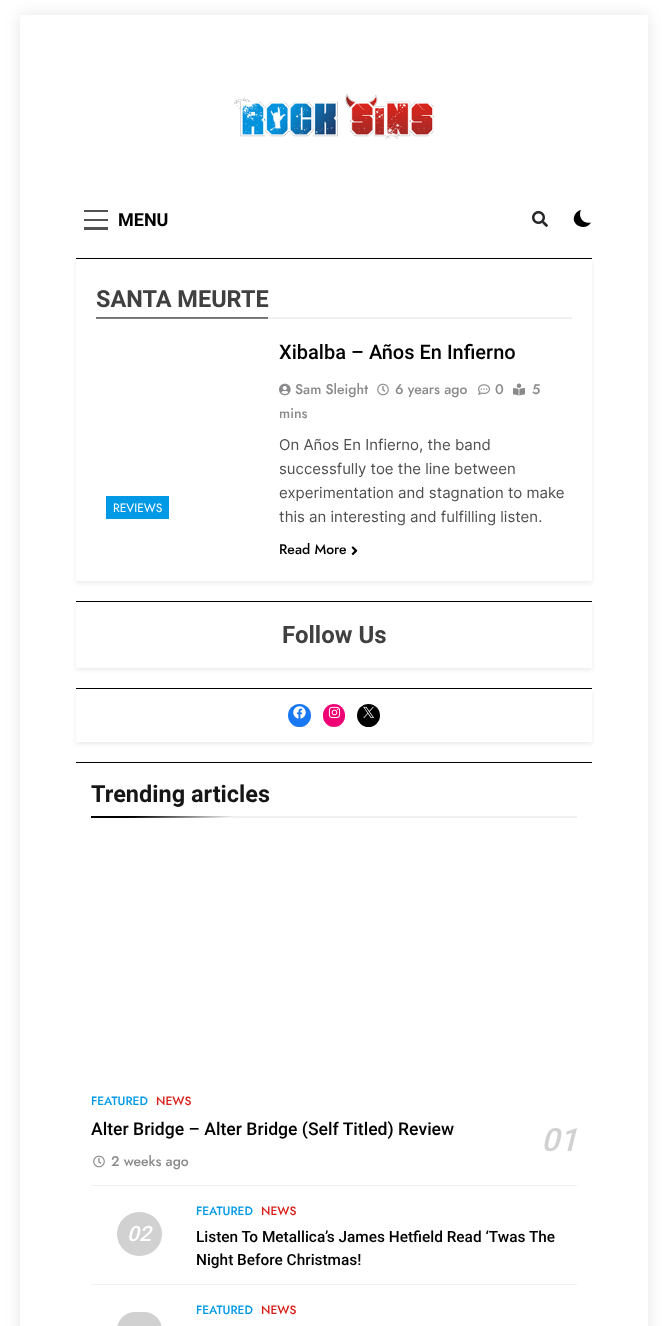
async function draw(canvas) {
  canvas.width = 668;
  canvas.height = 1326;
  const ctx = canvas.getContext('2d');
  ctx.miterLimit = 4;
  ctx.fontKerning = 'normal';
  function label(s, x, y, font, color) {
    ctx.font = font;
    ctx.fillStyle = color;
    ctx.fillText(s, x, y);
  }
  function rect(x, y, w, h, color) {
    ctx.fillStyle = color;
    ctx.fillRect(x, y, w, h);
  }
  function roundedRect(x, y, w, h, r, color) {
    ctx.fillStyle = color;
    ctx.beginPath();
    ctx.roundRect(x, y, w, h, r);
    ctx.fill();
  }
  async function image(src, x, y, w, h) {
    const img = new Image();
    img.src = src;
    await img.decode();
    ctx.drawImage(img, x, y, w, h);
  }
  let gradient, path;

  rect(0, 0, 668, 1326, '#fff');
  ctx.save();
  path = new Path2D('M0 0H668V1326H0ZM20 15H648V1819H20Z');
  ctx.clip(path, 'evenodd');
  ctx.fillStyle = '#0000001a';
  ctx.filter = 'blur(7.5px)';
  ctx.beginPath();
  ctx.rect(20, 15, 628, 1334);
  ctx.fill();
  ctx.filter = 'none';
  ctx.restore();
  await image('assets/img1.png', 234, 94, 200, 45);
  rect(84, 210, 24, 2, '#525252');
  rect(84, 219, 24, 2, '#525252');
  rect(84, 227, 24, 3, '#525252');
  label('MENU', 118, 226, 'bold 18px Roboto', '#000');
  await image('assets/img2.png', 532, 211, 16, 16);
  path = new Path2D('M591 222.5C583.5 224.5 577.5 217 581 210C578.5 210.5 576.5 212 575 214.5C569 224.5 585.5 232.5 591 222.5Z');
  ctx.fill(path);
  ctx.save();
  path = new Path2D('M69 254H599V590H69ZM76 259H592V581H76Z');
  ctx.clip(path, 'evenodd');
  ctx.fillStyle = '#00000014';
  ctx.filter = 'blur(2px)';
  ctx.beginPath();
  ctx.rect(76, 261, 516, 322);
  ctx.fill();
  ctx.filter = 'none';
  ctx.restore();
  rect(76, 258, 516, 1, '#000');
  rect(268, 317, 304, 2, '#f0f0f0');
  label('SANTA MEURTE', 96, 307, 'bold 23.5px Roboto', '#404040');
  gradient = ctx.createLinearGradient(182, 311, 182, 325);
  gradient.addColorStop(0, '#000');
  gradient.addColorStop(1, '#f0f0f0');
  ctx.fillStyle = gradient;
  ctx.fillRect(96, 317, 172, 2);
  rect(106, 496, 63, 23, '#0099e6');
  label('REVIEWS', 113, 512, '12px Jost', '#fff');
  label('Xibalba – Años En Infierno', 279, 359, '500 20px Roboto', '#000');
  await image('assets/img3.png', 279, 383, 12, 13);
  label('Sam Sleight', 295, 394, '500 14px Jost', '#8a8a8c');
  await image('assets/img4.png', 377, 383, 12, 13);
  label('6 years ago', 395, 394, '500 14px Jost', '#8a8a8c');
  await image('assets/img5.png', 478, 384, 12, 11);
  label('0', 495, 394, '500 14px Jost', '#8a8a8c');
  await image('assets/img6.png', 513, 383, 12, 13);
  label('5', 532, 394, '500 14px Jost', '#8a8a8c');
  label('mins', 279, 418, '500 14px Jost', '#8a8a8c');
  label('On Años En Infierno, the band', 279, 450, '15px Inter', '#505050');
  label('successfully toe the line between', 279, 474, '15px Inter', '#505050');
  label('experimentation and stagnation to make', 279, 498, '15px Inter', '#505050');
  label('this an interesting and fulfilling listen.', 279, 522, '15px Inter', '#505050');
  label('Read More', 279, 554, '500 14px Jost', '#000');
  await image('assets/img7.png', 351, 546, 7, 10);
  ctx.save();
  path = new Path2D('M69 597H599V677H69ZM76 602H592V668H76Z');
  ctx.clip(path, 'evenodd');
  ctx.fillStyle = '#00000014';
  ctx.filter = 'blur(2px)';
  ctx.beginPath();
  ctx.rect(76, 604, 516, 66);
  ctx.fill();
  ctx.filter = 'none';
  ctx.restore();
  rect(76, 601, 516, 1, '#000');
  label('Follow Us', 282, 643, 'bold 24px Roboto', '#404040');
  ctx.save();
  path = new Path2D('M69 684H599V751H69ZM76 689H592V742H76Z');
  ctx.clip(path, 'evenodd');
  ctx.fillStyle = '#00000014';
  ctx.filter = 'blur(2px)';
  ctx.beginPath();
  ctx.rect(76, 691, 516, 53);
  ctx.fill();
  ctx.filter = 'none';
  ctx.restore();
  rect(76, 688, 516, 1, '#000');
  ctx.fillStyle = '#1778f2';
  ctx.beginPath();
  ctx.arc(299.5, 715.5, 11.5, 0, 2 * Math.PI);
  ctx.fill();
  rect(294, 726, 11, 1, '#8a8a8c2e');
  await image('assets/img8.png', 293, 706, 13, 13);
  roundedRect(323, 704, 22, 23, 11, '#f00075');
  rect(329, 726, 11, 1, '#8a8a8c2e');
  await image('assets/img9.png', 328, 706, 13, 13);
  ctx.fillStyle = '#000';
  ctx.beginPath();
  ctx.arc(368.5, 715.5, 11.5, 0, 2 * Math.PI);
  ctx.fill();
  await image('assets/img10.png', 363, 706, 11, 13);
  rect(76, 762, 516, 1, '#000');
  rect(269, 816, 308, 2, '#f0f0f0');
  label('Trending articles', 91, 802, 'bold 23.5px Roboto', '#161616');
  gradient = ctx.createLinearGradient(179, 810, 181, 824);
  gradient.addColorStop(0, '#000');
  gradient.addColorStop(1, '#f0f0f0');
  ctx.fillStyle = gradient;
  ctx.fillRect(91, 816, 178, 2);
  rect(91, 1185, 486, 1, '#f0f0f0');
  label('FEATURED', 91, 1105, '500 12px Jost', '#0099e6');
  label('NEWS', 156, 1105, '500 12px Jost', '#d8201b');
  label('Alter Bridge – Alter Bridge (Self Titled) Review', 91, 1135, '500 17.6px Roboto', '#000');
  label('01', 541, 1151, 'italic 500 32px Roboto', '#d1d1d1');
  await image('assets/img4.png', 93, 1155, 12, 13);
  label('2 weeks ago', 111, 1166, '500 14px Jost', '#8a8a8c');
  rect(91, 1284, 486, 1, '#f0f0f0');
  roundedRect(117, 1212, 45, 44, 22, '#d1d1d1');
  label('02', 127, 1241, 'italic 500 21px Roboto', '#fff');
  label('FEATURED', 196, 1215, '500 12px Jost', '#0099e6');
  label('NEWS', 261, 1215, '500 12px Jost', '#d8201b');
  label('Listen To Metallica’s James Hetfield Read ‘Twas The', 196, 1242, '500 15.4px Roboto', '#000');
  label('Night Before Christmas!', 196, 1265, '500 15.4px Roboto', '#000');
  label('FEATURED', 196, 1314, '500 12px Jost', '#0099e6');
  label('NEWS', 261, 1314, '500 12px Jost', '#d8201b');
  roundedRect(117, 1312, 45, 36, 22, '#d1d1d1');
}

draw(document.querySelector('canvas'));
